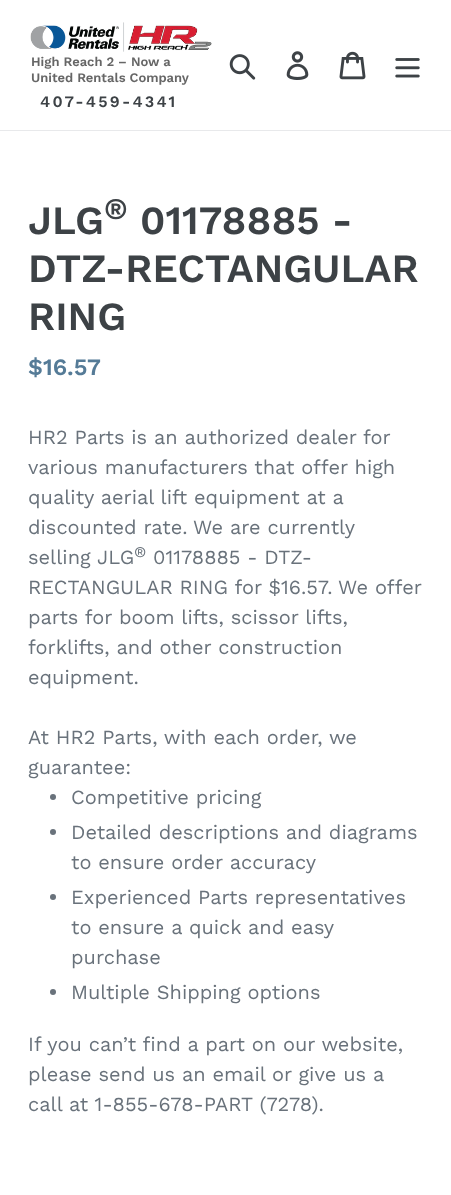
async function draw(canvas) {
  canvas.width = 451;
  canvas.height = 1195;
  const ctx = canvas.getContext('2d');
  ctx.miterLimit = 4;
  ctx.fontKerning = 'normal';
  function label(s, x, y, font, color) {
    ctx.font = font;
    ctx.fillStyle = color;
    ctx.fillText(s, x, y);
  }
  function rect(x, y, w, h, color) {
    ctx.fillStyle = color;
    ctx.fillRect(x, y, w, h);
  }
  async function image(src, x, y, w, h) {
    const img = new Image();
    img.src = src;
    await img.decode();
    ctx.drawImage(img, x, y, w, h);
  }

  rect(0, 0, 451, 1195, '#fff');
  rect(0, 130, 451, 1, '#e8e9eb');
  await image('assets/img1.png', 30, 22, 182, 30);
  label('High Reach 2 – Now a', 31, 66, '600 13px Work Sans', '#666');
  label('United Rentals Company', 31, 82, '600 13px Work Sans', '#666');
  ctx.letterSpacing = '2.25px';
  label('407-459-4341', 40, 107, '600 16px Work Sans', '#3d4246');
  await image('assets/img2.png', 229, 54, 27, 26);
  await image('assets/img3.png', 286, 51, 23, 29);
  await image('assets/img4.png', 339, 51, 27, 29);
  await image('assets/img5.png', 395, 58, 25, 20);
  ctx.letterSpacing = '0px';
  label('JLG', 28, 234, '600 40px Work Sans', '#3d4246');
  label('®', 104, 219, '600 30px Work Sans', '#3d4246');
  label('01178885 -', 140, 234, '600 40px Work Sans', '#3d4246');
  label('DTZ-RECTANGULAR', 28, 282, '600 40px Work Sans', '#3d4246');
  label('RING', 28, 330, '600 40px Work Sans', '#3d4246');
  label('$16.57', 28, 375, '600 23.5px Work Sans', '#557b97');
  label('HR2 Parts is an authorized dealer for', 28, 444, '20px Work Sans', '#69727b');
  label('various manufacturers that offer high', 28, 474, '20px Work Sans', '#69727b');
  label('quality aerial lift equipment at a', 28, 504, '20px Work Sans', '#69727b');
  label('discounted rate.', 28, 534, '20px Work Sans', '#69727b');
  label('We are currently', 193, 534, '20px Work Sans', '#69727b');
  label('selling JLG', 28, 564, '20px Work Sans', '#69727b');
  label('®', 134, 557, '15px Work Sans', '#69727b');
  label('01178885 - DTZ-', 153, 564, '20px Work Sans', '#69727b');
  label('RECTANGULAR RING for $16.57.', 28, 594, '20px Work Sans', '#69727b');
  label('We offer', 338, 594, '20px Work Sans', '#69727b');
  label('parts for boom lifts, scissor lifts,', 28, 624, '20px Work Sans', '#69727b');
  label('forklifts, and other construction', 28, 654, '20px Work Sans', '#69727b');
  label('equipment.', 28, 684, '20px Work Sans', '#69727b');
  label('At HR2 Parts, with each order, we', 28, 744, '20px Work Sans', '#69727b');
  label('guarantee:', 28, 774, '20px Work Sans', '#69727b');
  ctx.beginPath();
  ctx.arc(53, 797, 3, 0, 2 * Math.PI);
  ctx.fill();
  label('Competitive pricing', 71, 804, '20px Work Sans', '#69727b');
  ctx.beginPath();
  ctx.arc(53, 832, 3, 0, 2 * Math.PI);
  ctx.fill();
  label('Detailed descriptions and diagrams', 71, 839, '20px Work Sans', '#69727b');
  label('to ensure order accuracy', 71, 869, '20px Work Sans', '#69727b');
  ctx.beginPath();
  ctx.arc(53, 897, 3, 0, 2 * Math.PI);
  ctx.fill();
  label('Experienced Parts representatives', 71, 904, '20px Work Sans', '#69727b');
  label('to ensure a quick and easy', 71, 934, '20px Work Sans', '#69727b');
  label('purchase', 71, 964, '20px Work Sans', '#69727b');
  ctx.beginPath();
  ctx.arc(53, 992, 3, 0, 2 * Math.PI);
  ctx.fill();
  label('Multiple Shipping options', 71, 999, '20px Work Sans', '#69727b');
  label('If you can’t find a part on our website,', 28, 1051, '20px Work Sans', '#69727b');
  label('please send us an email or give us a', 28, 1081, '20px Work Sans', '#69727b');
  label('call at 1-855-678-PART (7278).', 28, 1111, '20px Work Sans', '#69727b');
}

draw(document.querySelector('canvas'));
